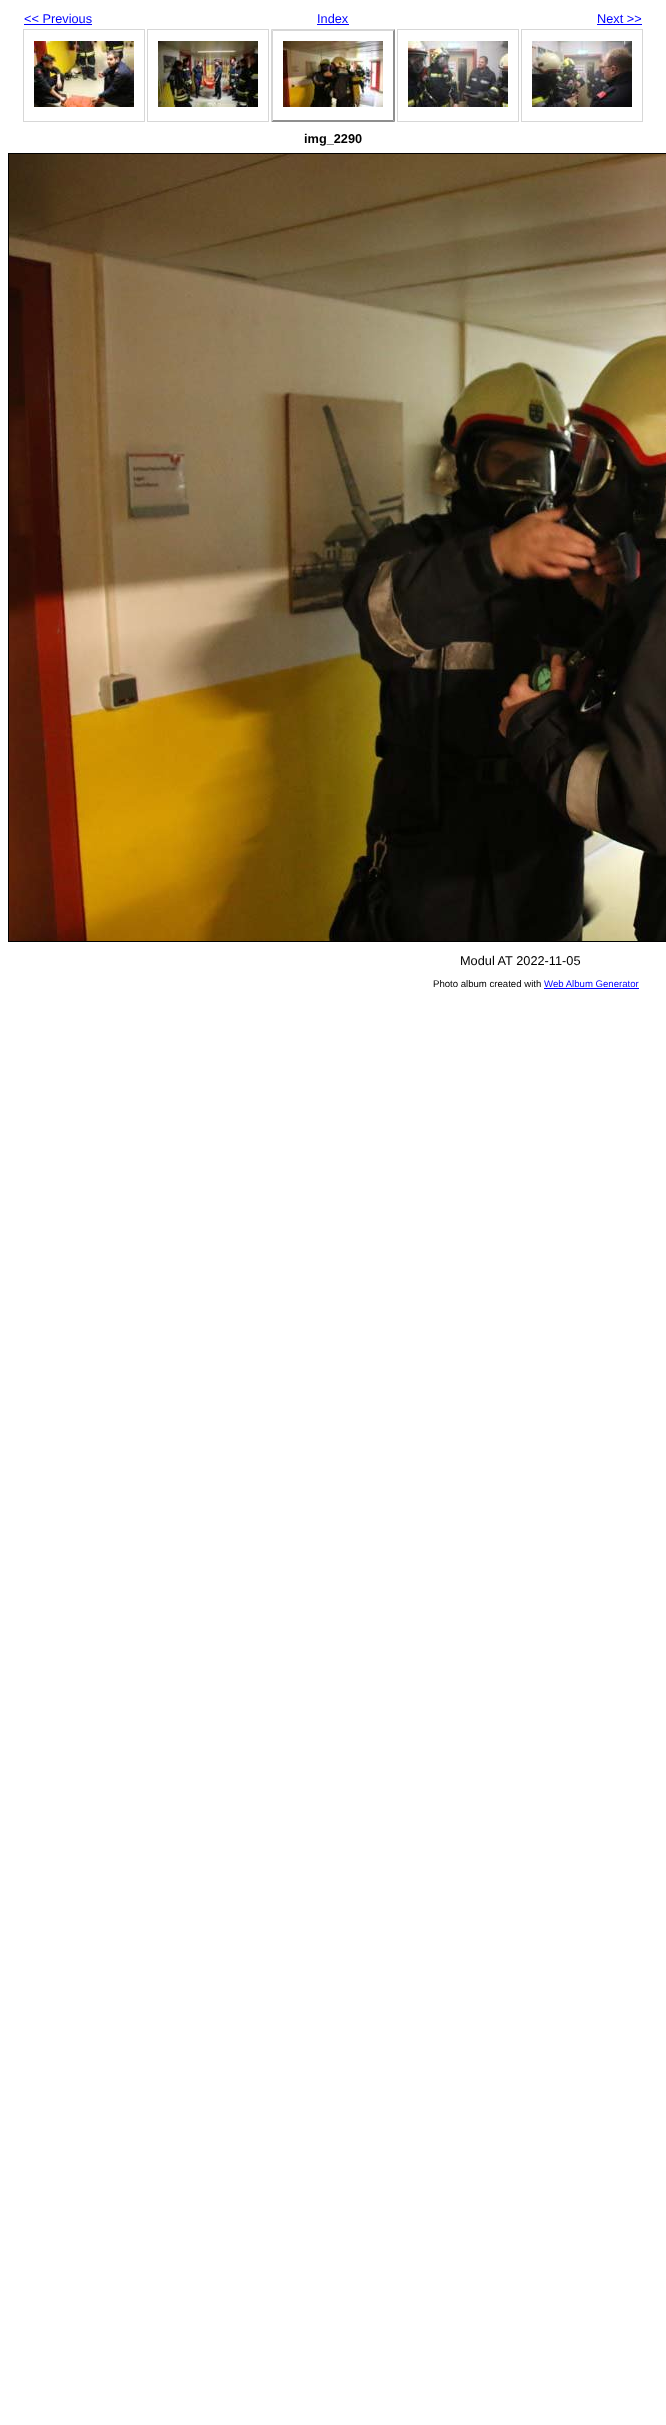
async function draw(canvas) {
  canvas.width = 666;
  canvas.height = 2425;
  const ctx = canvas.getContext('2d');
  ctx.miterLimit = 4;
  ctx.fontKerning = 'normal';
  function label(s, x, y, font, color) {
    ctx.font = font;
    ctx.fillStyle = color;
    ctx.fillText(s, x, y);
  }
  function rect(x, y, w, h, color) {
    ctx.fillStyle = color;
    ctx.fillRect(x, y, w, h);
  }
  async function image(src, x, y, w, h) {
    const img = new Image();
    img.src = src;
    await img.decode();
    ctx.drawImage(img, x, y, w, h);
  }
  let path;

  rect(0, 0, 666, 2425, '#fff');
  label('<< Previous', 24, 23, '12.75px Liberation Sans', '#00f');
  rect(24, 24, 68, 1, '#00f');
  label('Index', 317, 23, '12.75px Liberation Sans', '#00f');
  rect(317, 24, 32, 1, '#00f');
  label('Next >>', 597, 23, '12.75px Liberation Sans', '#00f');
  rect(597, 24, 45, 1, '#00f');
  ctx.strokeStyle = '#d7d7d7';
  ctx.strokeRect(23.5, 29.5, 121, 92);
  await image('assets/img1.png', 34, 41, 100, 66);
  ctx.strokeRect(147.5, 29.5, 121, 92);
  await image('assets/img2.png', 158, 41, 100, 66);
  ctx.fillStyle = '#d7d7d7';
  path = new Path2D('M271 29H395L393 31H273Z');
  ctx.fill(path);
  ctx.fillStyle = '#8f8f8f';
  path = new Path2D('M395 29V122L393 120V31Z');
  ctx.fill(path);
  path = new Path2D('M395 122H271L273 120H393Z');
  ctx.fill(path);
  ctx.fillStyle = '#d7d7d7';
  path = new Path2D('M271 122V29L273 31V120Z');
  ctx.fill(path);
  await image('assets/img3.png', 283, 41, 100, 66);
  ctx.strokeRect(397.5, 29.5, 121, 92);
  await image('assets/img4.png', 408, 41, 100, 66);
  ctx.strokeRect(521.5, 29.5, 121, 92);
  await image('assets/img5.png', 532, 41, 100, 66);
  label('img_2290', 304, 143, 'bold 12.75px Liberation Sans', '#000');
  ctx.strokeStyle = '#000';
  ctx.strokeRect(8.5, 153.5, 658, 788);
  await image('assets/img6.png', 9, 154, 657, 787);
  label('Modul AT 2022-11-05', 460, 965, '12.75px Liberation Sans', '#000');
  label('Photo album created with', 433, 987, '9.6px Liberation Sans', '#000');
  label('Web Album Generator', 544, 987, '9.6px Liberation Sans', '#00f');
  rect(544, 988, 95, 1, '#00f');
}

draw(document.querySelector('canvas'));
